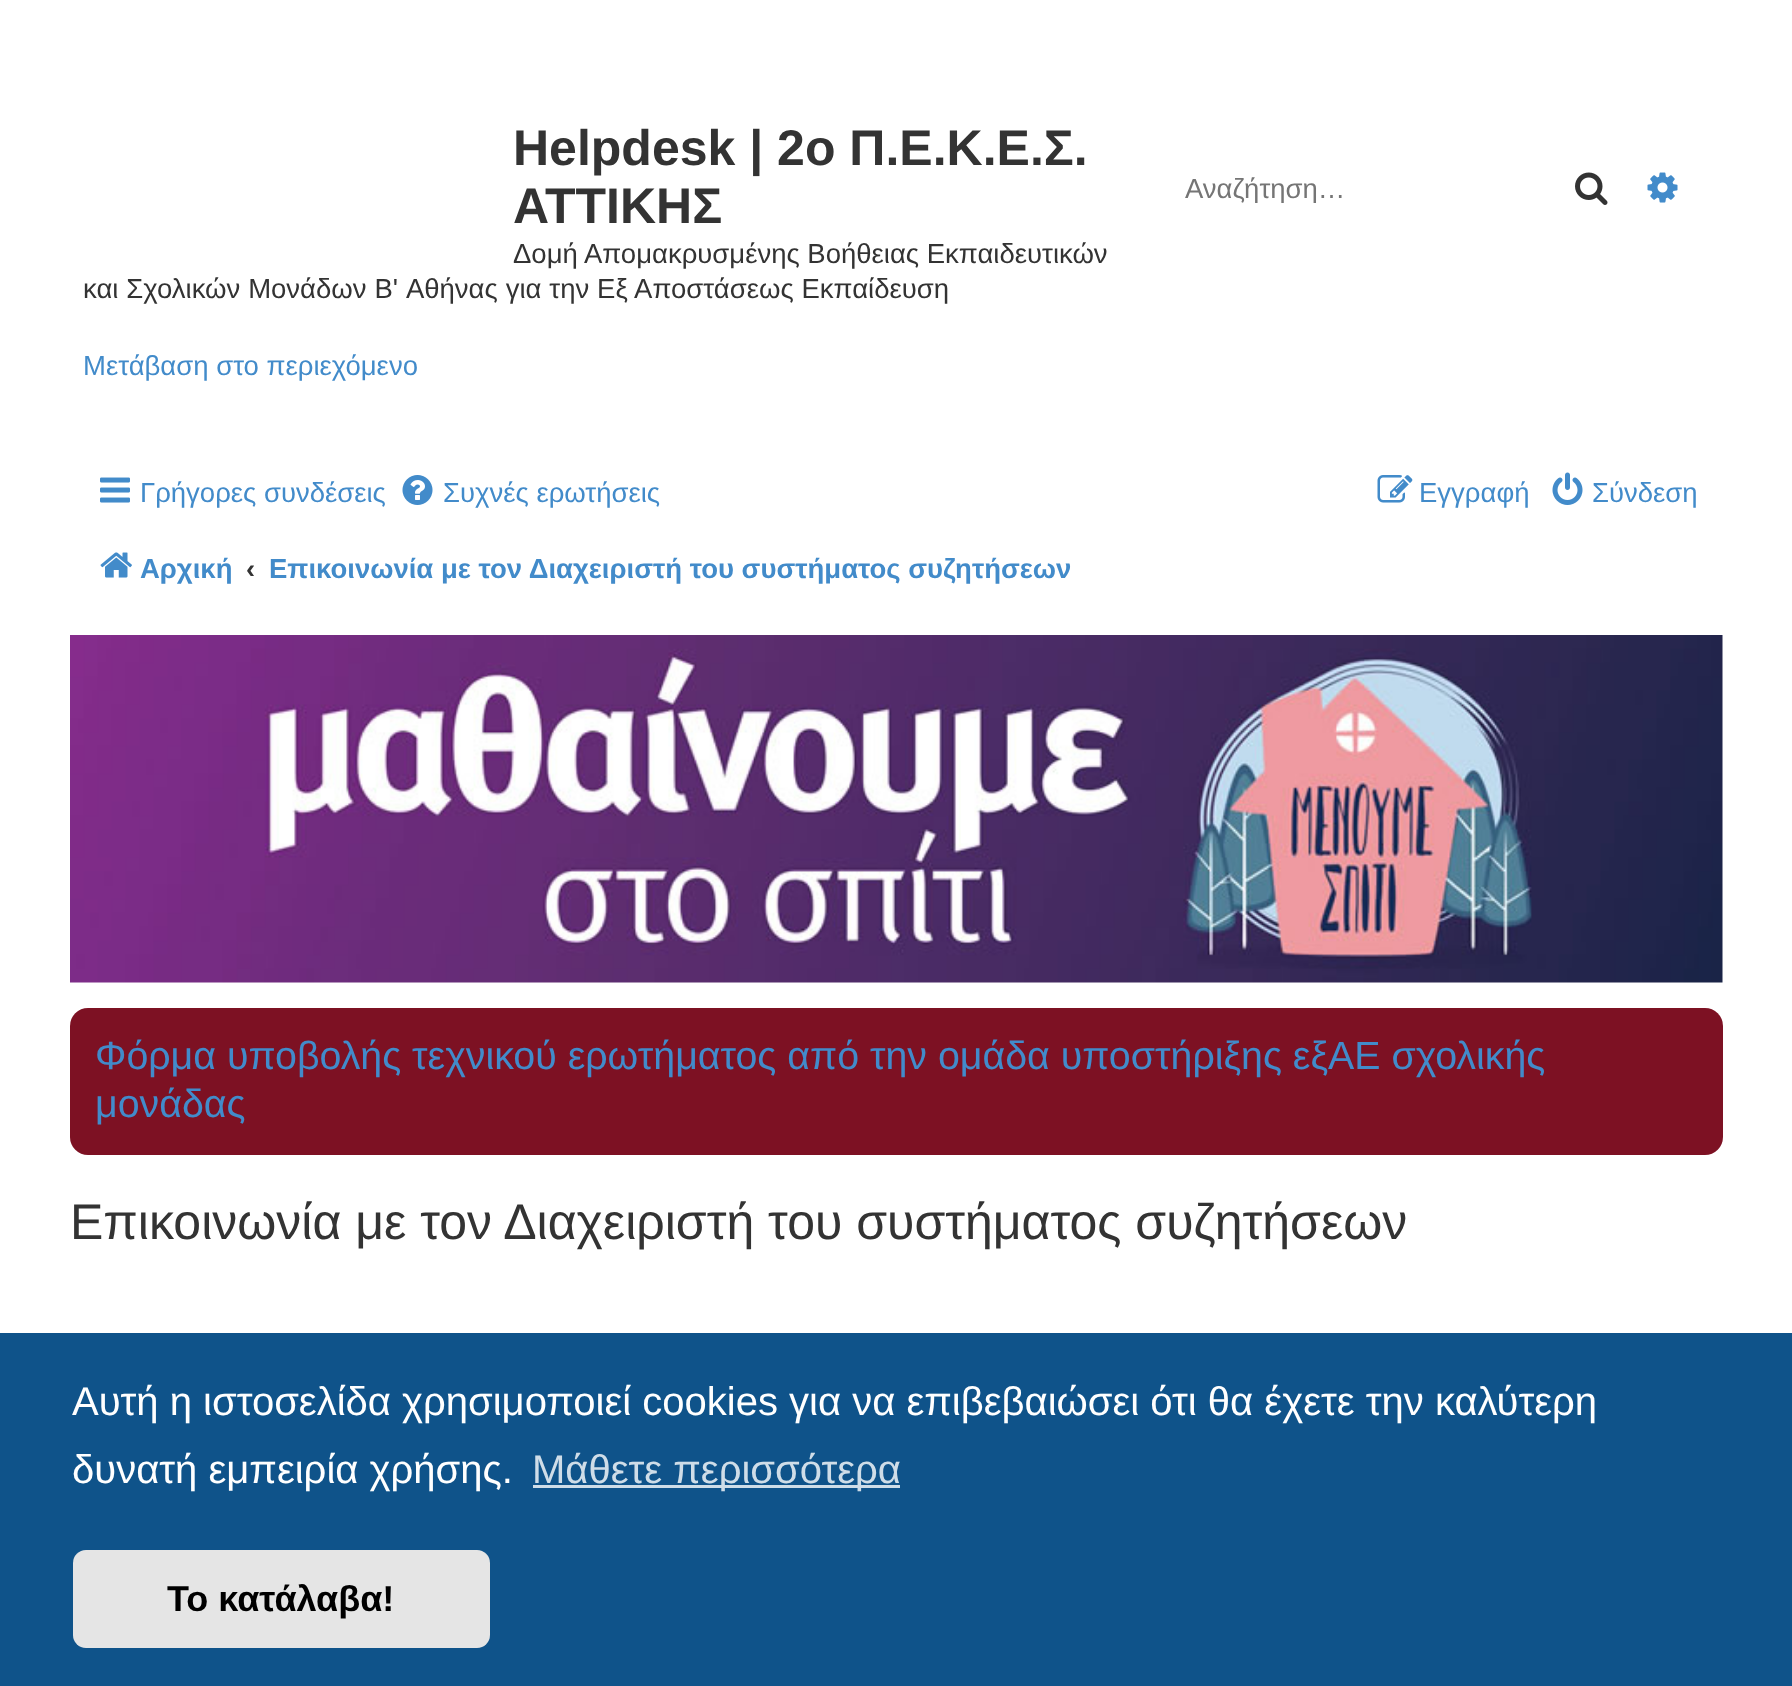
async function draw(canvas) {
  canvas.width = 1792;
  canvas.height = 1686;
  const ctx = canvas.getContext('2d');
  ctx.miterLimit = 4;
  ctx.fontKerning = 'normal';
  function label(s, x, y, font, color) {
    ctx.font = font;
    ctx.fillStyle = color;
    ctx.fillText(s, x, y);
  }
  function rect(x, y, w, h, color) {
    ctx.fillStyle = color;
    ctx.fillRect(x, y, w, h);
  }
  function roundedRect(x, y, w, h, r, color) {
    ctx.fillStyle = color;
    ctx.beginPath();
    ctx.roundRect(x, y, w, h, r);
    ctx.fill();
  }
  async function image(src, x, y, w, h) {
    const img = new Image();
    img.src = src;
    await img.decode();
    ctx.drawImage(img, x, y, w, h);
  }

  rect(0, 0, 1792, 1686, '#fff');
  label('Helpdesk | 2ο Π.Ε.Κ.Ε.Σ.', 513, 165, 'bold 50px Liberation Sans', '#333');
  label('ΑΤΤΙΚΗΣ', 513, 223, 'bold 50px Liberation Sans', '#333');
  label('Δομή Απομακρυσμένης Βοήθειας Εκπαιδευτικών', 513, 263, '27.5px Liberation Sans', '#333');
  ctx.wordSpacing = '0.25px';
  label('και Σχολικών Μονάδων B\' Αθήνας για την Εξ Αποστάσεως Εκπαίδευση', 83, 298, '27.5px Liberation Sans', '#333');
  ctx.wordSpacing = '0px';
  label('Μετάβαση στο περιεχόμενο', 83, 375, '27.5px Liberation Sans', '#428bca');
  ctx.save();
  ctx.beginPath();
  ctx.rect(1185, 173, 350, 30);
  ctx.clip();
  label('Αναζήτηση…', 1185, 198, '27.5px Liberation Sans', '#757575');
  ctx.restore();
  await image('assets/img1.png', 1575, 172, 33, 33);
  await image('assets/img2.png', 1647, 172, 31, 31);
  await image('assets/img3.png', 100, 477, 30, 26);
  label('Γρήγορες συνδέσεις', 140, 502, '27.5px Liberation Sans', '#428bca');
  await image('assets/img4.png', 402, 475, 31, 30);
  label('Συχνές ερωτήσεις', 443, 502, '27.5px Liberation Sans', '#428bca');
  await image('assets/img5.png', 1377, 475, 36, 28);
  label('Εγγραφή', 1419, 502, '27.5px Liberation Sans', '#428bca');
  await image('assets/img6.png', 1552, 472, 31, 33);
  label('Σύνδεση', 1592, 502, '27.5px Liberation Sans', '#428bca');
  await image('assets/img7.png', 100, 552, 32, 26);
  label('Αρχική', 140, 578, 'bold 27.5px Liberation Sans', '#428bca');
  label('‹', 246, 578, 'bold 27.5px Liberation Sans', '#333');
  label('Επικοινωνία με τον Διαχειριστή του συστήματος συζητήσεων', 269, 578, 'bold 27.5px Liberation Sans', '#428bca');
  await image('assets/img8.png', 70, 635, 1653, 348);
  roundedRect(70, 1008, 1653, 147, 18, '#7d1123');
  label('Φόρμα υποβολής τεχνικού ερωτήματος από την ομάδα υποστήριξης εξΑΕ σχολικής', 95, 1069, '39.35px Liberation Sans', '#428bca');
  label('μονάδας', 95, 1117, '39.35px Liberation Sans', '#428bca');
  label('Επικοινωνία με τον Διαχειριστή του συστήματος συζητήσεων', 70, 1239, '50px Liberation Sans', '#333');
  rect(0, 1333, 1792, 353, '#0f538a');
  label('Αυτή η ιστοσελίδα χρησιμοποιεί cookies για να επιβεβαιώσει ότι θα έχετε την καλύτερη', 72, 1415, '40px Liberation Sans', '#fff');
  label('δυνατή εμπειρία χρήσης.', 72, 1483, '40px Liberation Sans', '#fff');
  rect(533, 1485, 367, 3, '#cfdde8');
  label('Μάθετε περισσότερα', 532, 1483, '40px Liberation Sans', '#cfdde8');
  roundedRect(73, 1550, 417, 98, 13, '#e5e5e5');
  label('Το κατάλαβα!', 167, 1611, 'bold 36px Liberation Sans', '#000');
}

draw(document.querySelector('canvas'));
